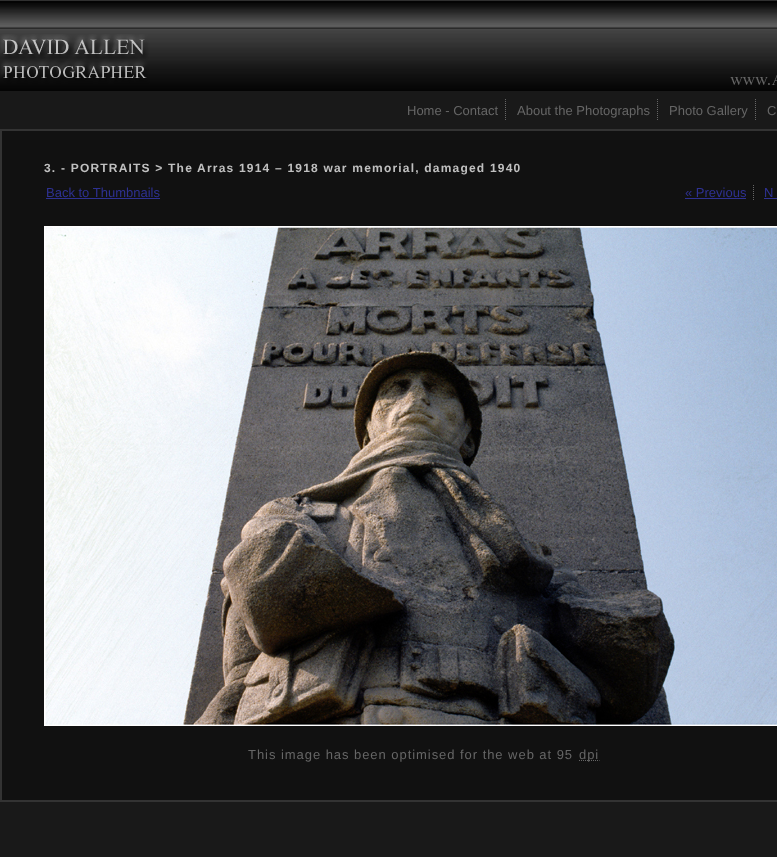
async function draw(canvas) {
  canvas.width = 777;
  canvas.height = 857;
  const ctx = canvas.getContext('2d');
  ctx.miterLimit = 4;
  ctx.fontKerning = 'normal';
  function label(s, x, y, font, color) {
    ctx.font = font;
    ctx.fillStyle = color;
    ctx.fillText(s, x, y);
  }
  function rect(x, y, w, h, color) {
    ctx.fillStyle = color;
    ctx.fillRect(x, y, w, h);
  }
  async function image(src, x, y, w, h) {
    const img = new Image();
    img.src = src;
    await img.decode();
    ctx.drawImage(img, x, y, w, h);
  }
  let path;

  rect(0, 0, 777, 857, '#191919');
  await image('assets/img1.png', 0, 0, 777, 91);
  await image('assets/img2.png', 0, 34, 777, 51);
  label('Home - Contact', 407, 115, '13px Liberation Sans', '#666');
  path = new Path2D('M505.5 99V120');
  ctx.strokeStyle = '#666';
  ctx.setLineDash([1, 1]);
  ctx.stroke(path);
  label('About the Photographs', 517, 115, '13px Liberation Sans', '#666');
  path = new Path2D('M657.5 99V120');
  ctx.stroke(path);
  label('Photo Gallery', 669, 115, '13px Liberation Sans', '#666');
  path = new Path2D('M755.5 99V120');
  ctx.stroke(path);
  label('C', 767, 115, '13px Liberation Sans', '#666');
  ctx.fillStyle = '#111';
  ctx.beginPath();
  ctx.rect(1, 130, 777, 671);
  ctx.fill();
  ctx.strokeStyle = '#333';
  ctx.lineWidth = 2;
  ctx.setLineDash([]);
  ctx.stroke();
  ctx.letterSpacing = '1.2px';
  label('3. - PORTRAITS > The Arras 1914 – 1918 war memorial, damaged 1940', 44, 172, 'bold 12px Liberation Sans', '#c0c0c0');
  ctx.letterSpacing = '0px';
  label('Back to Thumbnails', 46, 197, '13px Liberation Sans', '#2e3192');
  rect(46, 198, 114, 1, '#2e3192');
  path = new Path2D('M753.5 185V200');
  ctx.strokeStyle = '#666';
  ctx.lineWidth = 1;
  ctx.setLineDash([1, 1]);
  ctx.stroke(path);
  label('« Previous', 685, 197, '13px Liberation Sans', '#2e3192');
  rect(685, 198, 61, 1, '#2e3192');
  label('N', 764, 197, '13px Liberation Sans', '#2e3192');
  rect(764, 198, 13, 1, '#2e3192');
  await image('assets/img3.png', 44, 226, 733, 500);
  ctx.letterSpacing = '0.95px';
  label('This image has been optimised for the web at 95', 248, 759, '13px Liberation Sans', '#666');
  path = new Path2D('M579 760.5H599.5');
  ctx.stroke(path);
  label('dpi', 579, 759, '13px Liberation Sans', '#666');
}

draw(document.querySelector('canvas'));
